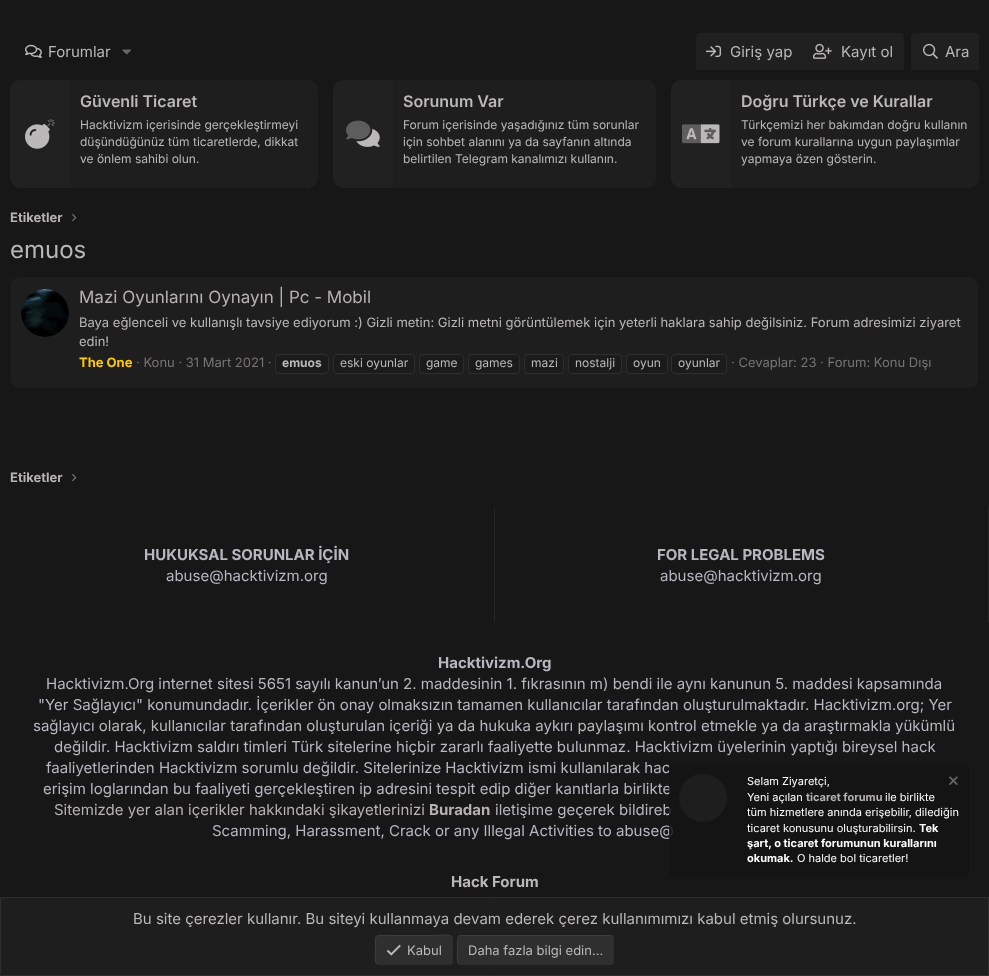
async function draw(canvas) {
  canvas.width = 989;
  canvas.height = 976;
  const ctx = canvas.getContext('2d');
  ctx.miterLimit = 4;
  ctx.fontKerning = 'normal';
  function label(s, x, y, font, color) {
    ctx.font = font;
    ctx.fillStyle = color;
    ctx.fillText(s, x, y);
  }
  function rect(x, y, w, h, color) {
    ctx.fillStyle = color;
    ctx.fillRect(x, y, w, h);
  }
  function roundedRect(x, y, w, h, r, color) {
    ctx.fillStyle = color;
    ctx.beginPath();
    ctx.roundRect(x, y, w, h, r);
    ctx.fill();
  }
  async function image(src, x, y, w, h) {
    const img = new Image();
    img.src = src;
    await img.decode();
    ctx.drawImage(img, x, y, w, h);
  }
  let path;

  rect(0, 0, 989, 976, '#171717');
  await image('assets/img1.png', 25, 44, 17, 14);
  label('Forumlar', 48, 57, '15px Inter', '#bab8b8');
  await image('assets/img2.png', 122, 49, 9, 6);
  ctx.fillStyle = '#212020';
  ctx.beginPath();
  ctx.roundRect(696, 33, 208, 37, [4, 4, 0, 0]);
  ctx.fill();
  await image('assets/img3.png', 706, 45, 15, 12);
  label('Giriş yap', 730, 57, '15px Inter', '#bab8b8');
  await image('assets/img4.png', 813, 43, 19, 16);
  label('Kayıt ol', 841, 57, '15px Inter', '#bab8b8');
  ctx.fillStyle = '#212020';
  ctx.beginPath();
  ctx.roundRect(911, 33, 68, 37, [4, 4, 0, 0]);
  ctx.fill();
  await image('assets/img5.png', 923, 43, 15, 16);
  label('Ara', 945, 57, '15px Inter', '#bab8b8');
  roundedRect(10, 80, 308, 108, 10, '#212121');
  await image('assets/img7.png', 25, 124, 25, 25);
  await image('assets/img6.png', 47, 118, 8, 9);
  ctx.fillStyle = '#1f1e1e';
  ctx.beginPath();
  ctx.roundRect(70, 80, 248, 108, [0, 10, 10, 0]);
  ctx.fill();
  label('Güvenli Ticaret', 80, 107, '600 16px Inter', '#bab8b8');
  label('Hacktivizm içerisinde gerçekleştirmeyi', 80, 129, '12px Inter', '#bab8b8');
  label('düşündüğünüz tüm ticaretlerde, dikkat', 80, 146, '12px Inter', '#bab8b8');
  label('ve önlem sahibi olun.', 80, 163, '12px Inter', '#bab8b8');
  roundedRect(333, 80, 323, 108, 10, '#212121');
  await image('assets/img9.png', 356, 128, 24, 19);
  await image('assets/img8.png', 346, 120, 25, 20);
  ctx.fillStyle = '#1f1e1e';
  ctx.beginPath();
  ctx.roundRect(393, 80, 263, 108, [0, 10, 10, 0]);
  ctx.fill();
  label('Sorunum Var', 403, 107, '600 16px Inter', '#bab8b8');
  label('Forum içerisinde yaşadığınız tüm sorunlar', 403, 129, '12px Inter', '#bab8b8');
  label('için sohbet alanını ya da sayfanın altında', 403, 146, '12px Inter', '#bab8b8');
  label('belirtilen Telegram kanalımızı kullanın.', 403, 163, '12px Inter', '#bab8b8');
  roundedRect(671, 80, 308, 108, 10, '#212121');
  await image('assets/img11.png', 686, 124, 34, 20);
  await image('assets/img10.png', 682, 124, 34, 20);
  ctx.fillStyle = '#1f1e1e';
  ctx.beginPath();
  ctx.roundRect(731, 80, 248, 108, [0, 10, 10, 0]);
  ctx.fill();
  label('Doğru Türkçe ve Kurallar', 741, 107, '600 16px Inter', '#bab8b8');
  label('Türkçemizi her bakımdan doğru kullanın', 741, 129, '12px Inter', '#bab8b8');
  label('ve forum kurallarına uygun paylaşımlar', 741, 146, '12px Inter', '#bab8b8');
  label('yapmaya özen gösterin.', 741, 163, '12px Inter', '#bab8b8');
  label('Etiketler', 10, 222, 'bold 13px Inter', '#b6b2b2');
  await image('assets/img12.png', 72, 214, 5, 8);
  label('emuos', 10, 258, '24px Inter', '#bab8b8');
  ctx.fillStyle = '#1f1e1e';
  ctx.beginPath();
  ctx.roundRect(10.5, 276.5, 968, 112, 9.5);
  ctx.fill();
  ctx.strokeStyle = '#171717';
  ctx.stroke();
  await image('assets/img13.png', 21, 289, 48, 48);
  label('Mazi Oyunlarını Oynayın | Pc - Mobil', 79, 303, '17px Inter', '#b6b2b2');
  label('Baya eğlenceli ve kullanışlı tavsiye ediyorum :) Gizli metin: Gizli metni görüntülemek için yeterli haklara sahip değilsiniz. Forum adresimizi ziyaret', 79, 327, '13px Inter', '#bab8b8');
  label('edin!', 79, 346, '13px Inter', '#bab8b8');
  label('The One', 79, 367, 'bold 13px Inter', '#ffcb00');
  label('· Konu · 31 Mart 2021 ·', 136, 367, '13px Inter', '#767474');
  ctx.fillStyle = '#1b1b1b';
  ctx.beginPath();
  ctx.roundRect(275.5, 354.5, 53, 19, 3.5);
  ctx.fill();
  ctx.strokeStyle = '#2e2e2e';
  ctx.stroke();
  label('emuos', 282, 367, 'bold 12px Inter', '#bab8b8');
  ctx.fillStyle = '#1b1b1b';
  ctx.beginPath();
  ctx.roundRect(333.5, 354.5, 81, 19, 3.5);
  ctx.fill();
  ctx.stroke();
  label('eski oyunlar', 340, 367, '12px Inter', '#bab8b8');
  ctx.fillStyle = '#1b1b1b';
  ctx.beginPath();
  ctx.roundRect(419.5, 354.5, 44, 19, 3.5);
  ctx.fill();
  ctx.stroke();
  label('game', 426, 367, '12px Inter', '#bab8b8');
  ctx.fillStyle = '#1b1b1b';
  ctx.beginPath();
  ctx.roundRect(468.5, 354.5, 51, 19, 3.5);
  ctx.fill();
  ctx.stroke();
  label('games', 475, 367, '12px Inter', '#bab8b8');
  ctx.fillStyle = '#1b1b1b';
  ctx.beginPath();
  ctx.roundRect(524.5, 354.5, 39, 19, 3.5);
  ctx.fill();
  ctx.stroke();
  label('mazi', 531, 367, '12px Inter', '#bab8b8');
  ctx.fillStyle = '#1b1b1b';
  ctx.beginPath();
  ctx.roundRect(568.5, 354.5, 53, 19, 3.5);
  ctx.fill();
  ctx.stroke();
  label('nostalji', 575, 367, '12px Inter', '#bab8b8');
  ctx.fillStyle = '#1b1b1b';
  ctx.beginPath();
  ctx.roundRect(626.5, 354.5, 41, 19, 3.5);
  ctx.fill();
  ctx.stroke();
  label('oyun', 633, 367, '12px Inter', '#bab8b8');
  ctx.fillStyle = '#1b1b1b';
  ctx.beginPath();
  ctx.roundRect(671.5, 354.5, 55, 19, 3.5);
  ctx.fill();
  ctx.stroke();
  label('oyunlar', 678, 367, '12px Inter', '#bab8b8');
  label('· Cevaplar: 23 · Forum: Konu Dışı', 731, 367, '13px Inter', '#767474');
  label('Etiketler', 10, 482, 'bold 13px Inter', '#b6b2b2');
  await image('assets/img12.png', 72, 474, 5, 8);
  rect(494, 507, 1, 115, '#262626');
  label('HUKUKSAL SORUNLAR İÇİN', 144, 560, 'bold 15px Inter', '#b7b7c0');
  label('abuse@hacktivizm.org', 166, 581, '15px Inter', '#b7b7c0');
  rect(988, 507, 1, 115, '#262626');
  label('FOR LEGAL PROBLEMS', 657, 560, 'bold 15px Inter', '#b7b7c0');
  label('abuse@hacktivizm.org', 660, 581, '15px Inter', '#b7b7c0');
  label('Hacktivizm.Org', 438, 668, 'bold 15px Inter', '#b7b7c0');
  label('Hacktivizm.Org internet sitesi 5651 sayılı kanun’un 2. maddesinin 1. fıkrasının m) bendi ile aynı kanunun 5. maddesi kapsamında', 46, 689, '15px Inter', '#b7b7c0');
  label('"Yer Sağlayıcı" konumundadır. İçerikler ön onay olmaksızın tamamen kullanıcılar tarafından oluşturulmaktadır. Hacktivizm.org; Yer', 38, 710, '15px Inter', '#b7b7c0');
  label('sağlayıcı olarak, kullanıcılar tarafından oluşturulan içeriği ya da hukuka aykırı paylaşımı kontrol etmekle ya da araştırmakla yükümlü', 33, 731, '15px Inter', '#b7b7c0');
  label('değildir. Hacktivizm saldırı timleri Türk sitelerine hiçbir zararlı faaliyette bulunmaz. Hacktivizm üyelerinin yaptığı bireysel hack', 54, 752, '15px Inter', '#b7b7c0');
  label('faaliyetlerinden Hacktivizm sorumlu değildir. Sitelerinize Hacktivizm ismi kullanılarak hac', 46, 773, '15px Inter', '#b7b7c0');
  label('erişim loglarından bu faaliyeti gerçekleştiren ip adresini tespit edip diğer kanıtlarla birlikte', 43, 794, '15px Inter', '#b7b7c0');
  label('Sitemizde yer alan içerikler hakkındaki şikayetlerinizi', 54, 815, '15px Inter', '#b6b2b2');
  label('Buradan', 429, 815, 'bold 15px Inter', '#b6b2b2');
  label('iletişime geçerek bildireb', 495, 815, '15px Inter', '#b7b7c0');
  label('Scamming, Harassment, Crack or any Illegal Activities to abuse@', 212, 836, '15px Inter', '#b7b7c0');
  label('Hack Forum', 451, 887, 'bold 15px Inter', '#bab8b8');
  roundedRect(669, 764, 300, 113, 4, '#141414cc');
  ctx.fillStyle = '#1f1e1e';
  ctx.beginPath();
  ctx.arc(703, 798, 24, 0, 2 * Math.PI);
  ctx.fill();
  label('Selam Ziyaretçi,', 747, 785, '11px Inter', '#fefefe');
  await image('assets/img14.png', 949, 776, 9, 9);
  label('Yeni açılan', 747, 801, '11px Inter', '#fefefe');
  label('ticaret forumu', 806, 801, 'bold 11px Inter', '#b6b2b2');
  label('ile birlikte', 885, 801, '11px Inter', '#fefefe');
  label('tüm hizmetlere anında erişebilir, dilediğin', 747, 816, '11px Inter', '#fefefe');
  label('ticaret konusunu oluşturabilirsin.', 747, 832, '11px Inter', '#fefefe');
  label('Tek', 919, 832, 'bold 11px Inter', '#fefefe');
  label('şart, o ticaret forumunun kurallarını', 747, 847, 'bold 11px Inter', '#fefefe');
  label('okumak.', 747, 862, 'bold 11px Inter', '#fefefe');
  label('O halde bol ticaretler!', 797, 862, '11px Inter', '#fefefe');
  ctx.fillStyle = '#1f1e1e';
  ctx.beginPath();
  ctx.rect(0.5, 897.5, 988, 78);
  ctx.fill();
  ctx.stroke();
  label('Bu site çerezler kullanır. Bu siteyi kullanmaya devam ederek çerez kullanımımızı kabul etmiş olursunuz.', 133, 924, '15px Inter', '#bab8b8');
  roundedRect(375, 935, 78, 30, 4, '#2f2f2f');
  path = new Path2D('M451.5 936.5C453.5 938.5 452.5 947 452.5 950C452.5 966.5 455 964.5 437.5 964.5H390.5C390.5 964.5 379.5 966.5 376.5 963.5');
  ctx.strokeStyle = '#2b2b2ba6';
  ctx.stroke(path);
  path = new Path2D('M376.5 963.5C374.5 961.5 375.5 953 375.5 950C375.5 933.5 373 935.5 390.5 935.5H437.5C437.5 935.5 448.5 933.5 451.5 936.5');
  ctx.strokeStyle = '#454545a6';
  ctx.stroke(path);
  await image('assets/img15.png', 386, 944, 15, 12);
  label('Kabul', 407, 955, '13px Inter', '#bab8b8');
  roundedRect(457, 935, 157, 30, 4, '#2f2f2f');
  path = new Path2D('M458.5 963.5C456.5 961.5 457.5 953 457.5 950V942.5C457.5 940 457 935.5 461 935.5H610L612.5 936.5');
  ctx.stroke(path);
  label('Daha fazla bilgi edin...', 468, 955, '13px Inter', '#bab8b8');
}

draw(document.querySelector('canvas'));
